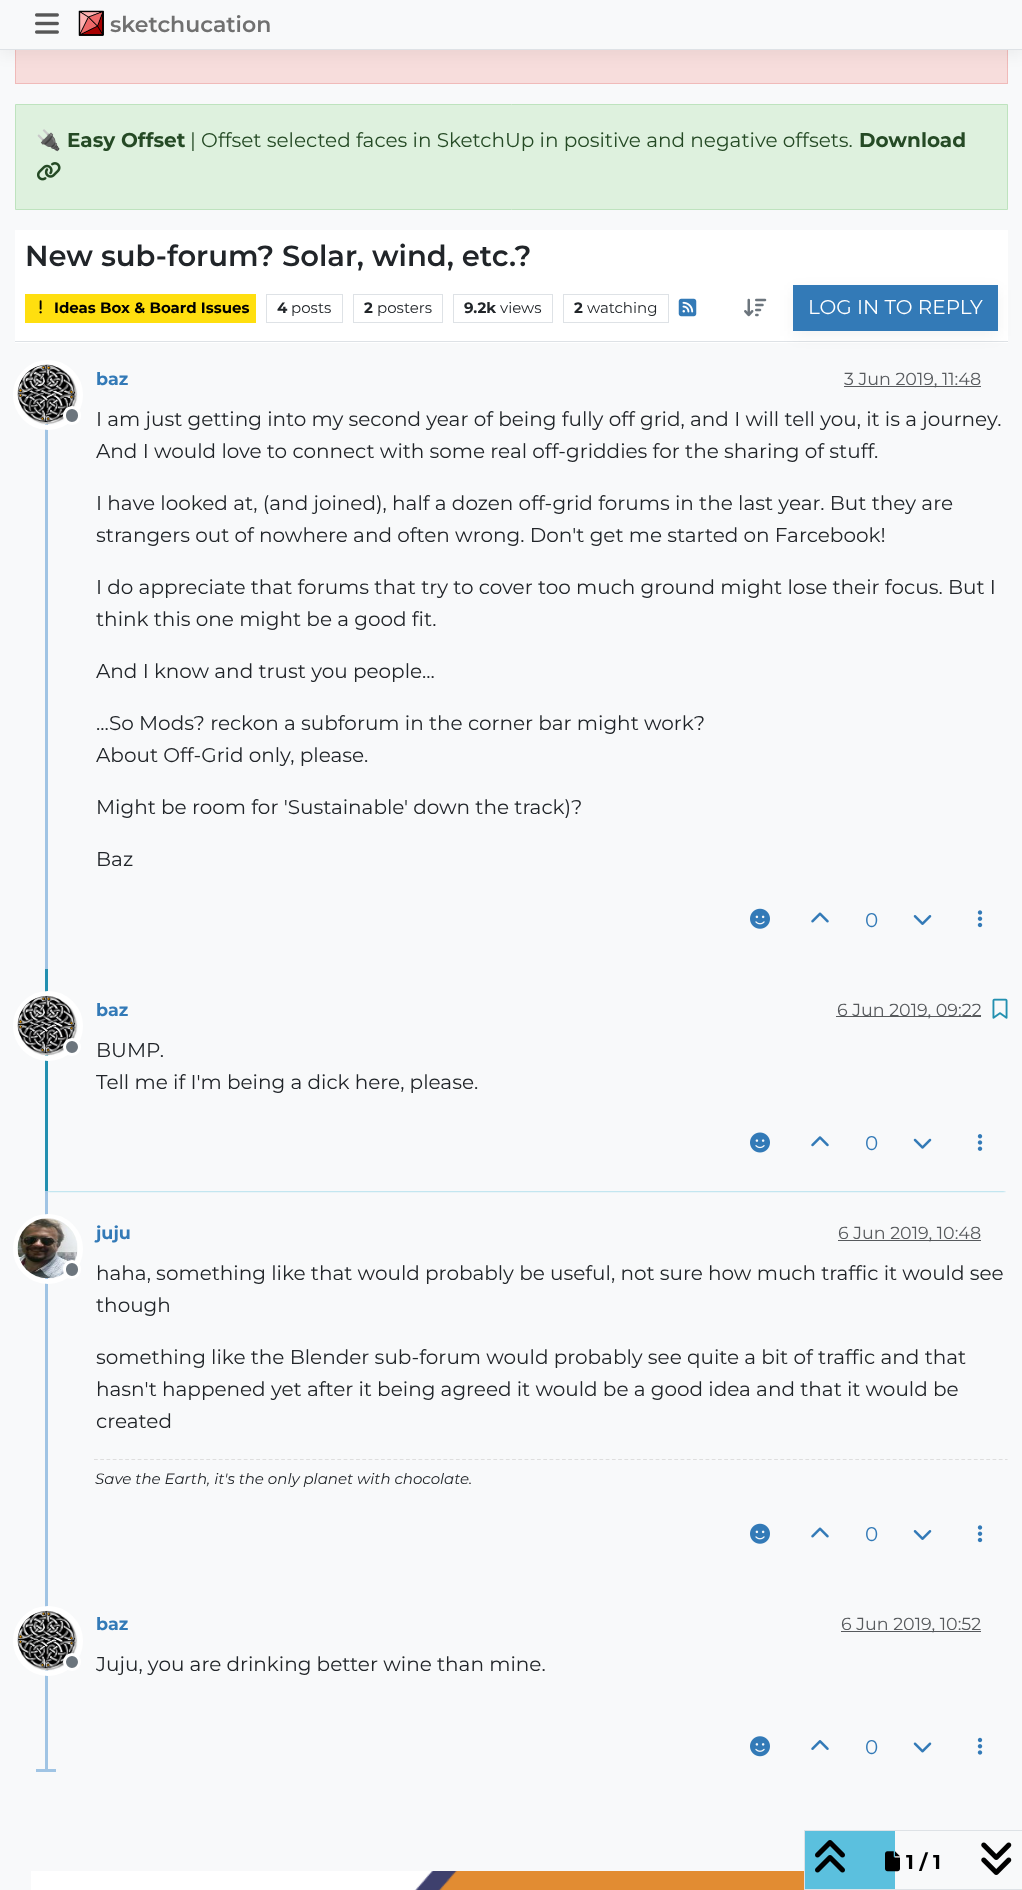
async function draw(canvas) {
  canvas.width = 1022;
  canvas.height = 1890;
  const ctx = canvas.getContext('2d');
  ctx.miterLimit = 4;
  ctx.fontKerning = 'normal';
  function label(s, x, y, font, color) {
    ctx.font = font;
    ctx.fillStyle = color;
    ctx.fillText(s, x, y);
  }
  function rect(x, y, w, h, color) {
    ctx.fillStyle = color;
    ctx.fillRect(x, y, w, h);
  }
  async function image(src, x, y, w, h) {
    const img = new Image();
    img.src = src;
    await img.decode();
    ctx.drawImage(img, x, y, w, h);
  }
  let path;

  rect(0, 0, 1022, 1890, '#f8f9fa');
  rect(16, 50, 991, 33, '#f7dddc');
  ctx.strokeStyle = '#f0bab9';
  ctx.strokeRect(15.5, -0.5, 992, 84);
  ctx.fillStyle = '#0000000d';
  ctx.filter = 'blur(7.5px)';
  ctx.beginPath();
  ctx.rect(0, 5, 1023, 50);
  ctx.fill();
  ctx.filter = 'none';
  rect(0, 0, 1022, 49, '#f8f9fa');
  rect(0, 49, 1022, 1, '#dee2e6');
  await image('assets/img1.png', 35, 13, 24, 21);
  await image('assets/img2.png', 78, 10, 26, 26);
  label('sketchucation', 110, 32, '100 22px "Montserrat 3"', '#707070');
  ctx.fillStyle = '#def1de';
  ctx.beginPath();
  ctx.rect(15.5, 104.5, 992, 105);
  ctx.fill();
  ctx.strokeStyle = '#bee3be';
  ctx.stroke();
  label('🔌', 36, 147, 'bold 20px Noto Color Emoji', '#254a25');
  label('Easy Offset', 67, 147, '100 20px Montserrat', '#254a25');
  label('| Offset selected faces in SketchUp in positive and negative offsets.', 190, 147, '100 20px "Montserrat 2"', '#254a25');
  label('Download', 859, 147, '100 20px Montserrat', '#254a25');
  await image('assets/img3.png', 37, 162, 24, 19);
  rect(15, 230, 993, 113, '#fff');
  rect(15, 341, 993, 1, '#dee2e6');
  label('New sub-forum? Solar, wind, etc.?', 25, 266, '100 29px "Montserrat 3"', '#212529');
  rect(25, 294, 231, 29, '#ffdf0f');
  await image('assets/img4.png', 39, 300, 3, 14);
  label('Ideas Box & Board Issues', 54, 313, '100 15px Montserrat', '#000');
  ctx.strokeStyle = '#dee2e6';
  ctx.strokeRect(266.5, 294.5, 76, 28);
  label('4', 277, 313, '100 15px Montserrat', '#212529');
  label('posts', 291, 313, '100 15px "Montserrat 2"', '#212529');
  ctx.strokeRect(353.5, 294.5, 89, 28);
  label('2', 364, 313, '100 15px Montserrat', '#212529');
  label('posters', 377, 313, '100 15px "Montserrat 2"', '#212529');
  ctx.strokeRect(453.5, 294.5, 99, 28);
  label('9.2k', 464, 313, '100 15px Montserrat', '#212529');
  label('views', 500, 313, '100 15px "Montserrat 2"', '#212529');
  ctx.strokeRect(563.5, 294.5, 105, 28);
  label('2', 574, 313, '100 15px Montserrat', '#212529');
  label('watching', 587, 313, '100 15px "Montserrat 2"', '#212529');
  await image('assets/img5.png', 678, 298, 19, 19);
  await image('assets/img6.png', 744, 298, 23, 19);
  ctx.fillStyle = '#0000000d';
  ctx.filter = 'blur(7.5px)';
  ctx.beginPath();
  ctx.rect(793, 290, 205, 46);
  ctx.fill();
  ctx.filter = 'none';
  rect(793, 285, 205, 46, '#337ab7');
  label('LOG IN TO REPLY', 808, 314, '100 20px "Montserrat 2"', '#fff');
  rect(45, 424, 3, 545, '#a0c4e4');
  ctx.beginPath();
  ctx.arc(48, 395, 32.5, 0, 2 * Math.PI);
  ctx.strokeStyle = '#fff';
  ctx.lineWidth = 5;
  ctx.stroke();
  await image('assets/img7.png', 17, 364, 60, 61);
  ctx.fillStyle = '#6c757d';
  ctx.beginPath();
  ctx.roundRect(64.5, 407.5, 15, 16, 7.5);
  ctx.fill();
  ctx.lineWidth = 3;
  ctx.stroke();
  label('baz', 96, 385, '100 17.5px Montserrat', '#337ab7');
  rect(844, 386, 137, 1, '#575a5d');
  label('3 Jun 2019, 11:48', 844, 385, '100 17.5px "Montserrat 2"', '#575a5d');
  label('I am just getting into my second year of being fully off grid, and I will tell you, it is a journey.', 96, 426, '100 20px "Montserrat 2"', '#212529');
  label('And I would love to connect with some real off-griddies for the sharing of stuff.', 96, 458, '100 20px "Montserrat 2"', '#212529');
  label('I have looked at, (and joined), half a dozen off-grid forums in the last year. But they are', 96, 510, '100 20px "Montserrat 2"', '#212529');
  label('strangers out of nowhere and often wrong. Don\'t get me started on Farcebook!', 96, 542, '100 20px "Montserrat 2"', '#212529');
  label('I do appreciate that forums that try to cover too much ground might lose their focus. But I', 96, 594, '100 20px "Montserrat 2"', '#212529');
  label('think this one might be a good fit.', 96, 626, '100 20px "Montserrat 2"', '#212529');
  label('And I know and trust you people...', 96, 678, '100 20px "Montserrat 2"', '#212529');
  label('...So Mods? reckon a subforum in the corner bar might work?', 96, 730, '100 20px "Montserrat 2"', '#212529');
  label('About Off-Grid only, please.', 96, 762, '100 20px "Montserrat 2"', '#212529');
  label('Might be room for \'Sustainable\' down the track)?', 96, 814, '100 20px "Montserrat 2"', '#212529');
  label('Baz', 96, 866, '100 20px "Montserrat 2"', '#212529');
  await image('assets/img8.png', 750, 908, 20, 21);
  await image('assets/img9.png', 811, 912, 18, 11);
  label('0', 865, 927, '100 20px "Montserrat 2"', '#337ab7');
  await image('assets/img10.png', 913, 915, 19, 10);
  await image('assets/img11.png', 977, 910, 6, 18);
  ctx.save();
  ctx.beginPath();
  ctx.rect(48, 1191, 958, 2);
  ctx.clip();
  ctx.fillStyle = '#5bc0de';
  ctx.filter = 'blur(1px)';
  ctx.beginPath();
  ctx.rect(48, 974, 957, 217);
  ctx.fill();
  ctx.filter = 'none';
  ctx.restore();
  rect(45, 969, 3, 222, '#2390b0');
  ctx.beginPath();
  ctx.arc(48, 1026, 32.5, 0, 2 * Math.PI);
  ctx.lineWidth = 5;
  ctx.stroke();
  await image('assets/img12.png', 17, 995, 60, 61);
  ctx.fillStyle = '#6c757d';
  ctx.beginPath();
  ctx.arc(72, 1047, 7.5, 0, 2 * Math.PI);
  ctx.fill();
  ctx.lineWidth = 3;
  ctx.stroke();
  label('baz', 96, 1016, '100 17.5px Montserrat', '#337ab7');
  rect(836, 1016, 145, 1, '#575a5d');
  label('6 Jun 2019, 09:22', 837, 1016, '100 17.5px "Montserrat 2"', '#575a5d');
  await image('assets/img13.png', 992, 998, 16, 21);
  label('BUMP.', 96, 1057, '100 20px "Montserrat 2"', '#212529');
  label('Tell me if I\'m being a dick here, please.', 96, 1089, '100 20px "Montserrat 2"', '#212529');
  await image('assets/img14.png', 750, 1132, 20, 21);
  await image('assets/img15.png', 811, 1136, 18, 11);
  label('0', 865, 1150, '100 20px "Montserrat 2"', '#337ab7');
  await image('assets/img16.png', 913, 1138, 19, 11);
  await image('assets/img17.png', 977, 1134, 6, 17);
  rect(45, 1191, 3, 580, '#a0c4e4');
  ctx.beginPath();
  ctx.arc(48, 1249, 32.5, 0, 2 * Math.PI);
  ctx.lineWidth = 5;
  ctx.stroke();
  await image('assets/img18.png', 17, 1218, 60, 61);
  ctx.fillStyle = '#6c757d';
  ctx.beginPath();
  ctx.roundRect(64.5, 1261.5, 15, 16, 7.5);
  ctx.fill();
  ctx.lineWidth = 3;
  ctx.stroke();
  label('juju', 96, 1239, '100 17.5px Montserrat', '#337ab7');
  rect(838, 1240, 143, 1, '#575a5d');
  label('6 Jun 2019, 10:48', 838, 1239, '100 17.5px "Montserrat 2"', '#575a5d');
  label('haha, something like that would probably be useful, not sure how much traffic it would see', 96, 1280, '100 20px "Montserrat 2"', '#212529');
  label('though', 96, 1312, '100 20px "Montserrat 2"', '#212529');
  label('something like the Blender sub-forum would probably see quite a bit of traffic and that', 96, 1364, '100 20px "Montserrat 2"', '#212529');
  label('hasn\'t happened yet after it being agreed it would be a good idea and that it would be', 96, 1396, '100 20px "Montserrat 2"', '#212529');
  label('created', 96, 1428, '100 20px "Montserrat 2"', '#212529');
  path = new Path2D('M94 1459.5H1007.5');
  ctx.strokeStyle = '#dedede';
  ctx.lineWidth = 1.2;
  ctx.setLineDash([3.75, 2.49]);
  ctx.stroke(path);
  label('Save the Earth, it\'s the only planet with chocolate.', 95, 1484, 'italic 100 15px Montserrat', '#212529');
  await image('assets/img8.png', 750, 1523, 20, 21);
  await image('assets/img9.png', 811, 1527, 18, 11);
  label('0', 865, 1541, '100 20px "Montserrat 2"', '#337ab7');
  await image('assets/img10.png', 913, 1530, 19, 10);
  await image('assets/img11.png', 977, 1525, 6, 18);
  ctx.beginPath();
  ctx.arc(48, 1641, 32.5, 0, 2 * Math.PI);
  ctx.strokeStyle = '#fff';
  ctx.lineWidth = 5;
  ctx.setLineDash([]);
  ctx.stroke();
  await image('assets/img19.png', 17, 1610, 60, 61);
  ctx.fillStyle = '#6c757d';
  ctx.beginPath();
  ctx.arc(72, 1662, 7.5, 0, 2 * Math.PI);
  ctx.fill();
  ctx.lineWidth = 3;
  ctx.stroke();
  label('baz', 96, 1630, '100 17.5px Montserrat', '#337ab7');
  rect(841, 1631, 140, 1, '#575a5d');
  label('6 Jun 2019, 10:52', 841, 1630, '100 17.5px "Montserrat 2"', '#575a5d');
  label('Juju, you are drinking better wine than mine.', 96, 1671, '100 20px "Montserrat 2"', '#212529');
  await image('assets/img20.png', 750, 1736, 20, 21);
  await image('assets/img21.png', 811, 1740, 18, 10);
  label('0', 865, 1754, '100 20px "Montserrat 2"', '#337ab7');
  await image('assets/img22.png', 913, 1742, 19, 11);
  await image('assets/img23.png', 977, 1737, 6, 18);
  rect(36, 1769, 20, 3, '#a0c4e4');
  ctx.strokeStyle = '#dee2e6';
  ctx.lineWidth = 1;
  ctx.strokeRect(804.5, 1830.5, 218, 59);
  rect(805, 1831, 90, 58, '#5bc0de');
  await image('assets/img24.png', 815, 1840, 30, 33);
  await image('assets/img25.png', 885, 1851, 15, 21);
  label('1 / 1', 906, 1869, '100 20px Montserrat', '#000');
  await image('assets/img26.png', 981, 1842, 31, 33);
  await image('assets/img27.png', 31, 1871, 773, 19);
}

draw(document.querySelector('canvas'));
